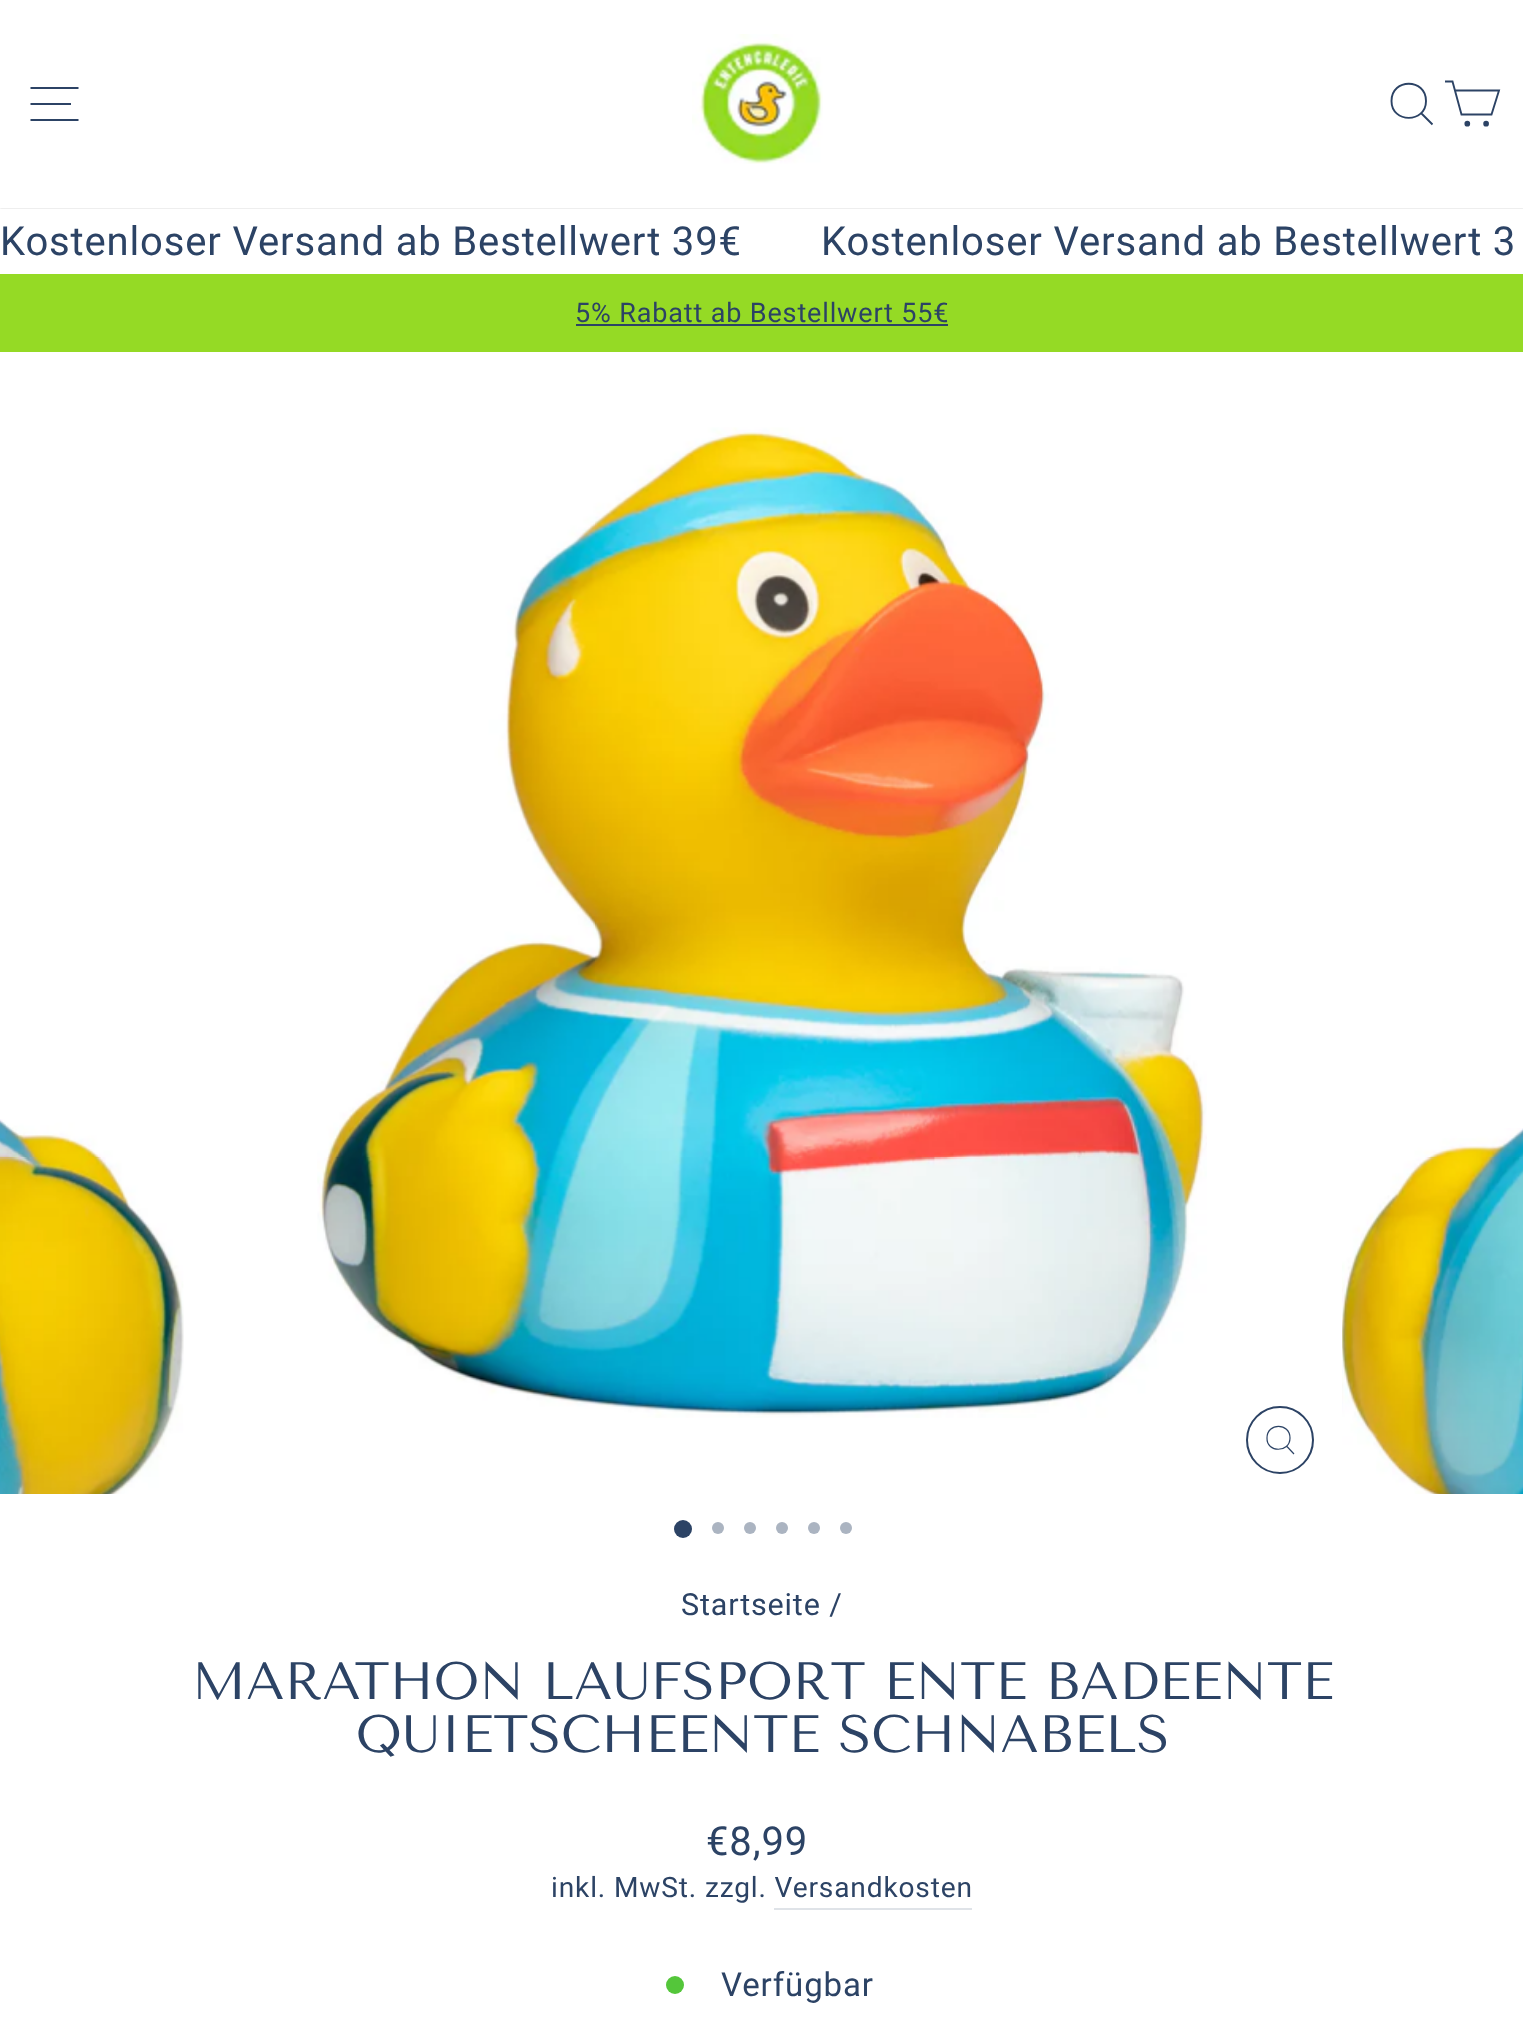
async function draw(canvas) {
  canvas.width = 1523;
  canvas.height = 2028;
  const ctx = canvas.getContext('2d');
  ctx.miterLimit = 4;
  ctx.fontKerning = 'normal';
  function label(s, x, y, font, color) {
    ctx.font = font;
    ctx.fillStyle = color;
    ctx.fillText(s, x, y);
  }
  function rect(x, y, w, h, color) {
    ctx.fillStyle = color;
    ctx.fillRect(x, y, w, h);
  }
  async function image(src, x, y, w, h) {
    const img = new Image();
    img.src = src;
    await img.decode();
    ctx.drawImage(img, x, y, w, h);
  }
  let path;

  rect(0, 0, 1523, 2028, '#fff');
  ctx.save();
  ctx.beginPath();
  ctx.rect(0, 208, 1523, 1);
  ctx.clip();
  ctx.fillStyle = '#00000033';
  ctx.filter = 'blur(1px)';
  ctx.beginPath();
  ctx.rect(0, 0, 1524, 208);
  ctx.fill();
  ctx.filter = 'none';
  ctx.restore();
  path = new Path2D('M30.5 88H78.5M30.5 104H71M30.5 120H78.5');
  ctx.strokeStyle = '#2c4365';
  ctx.lineWidth = 1.9;
  ctx.stroke(path);
  await image('assets/img1.png', 692, 34, 131, 130);
  path = new Path2D('M1426 101C1426 123.5 1391.5 123.5 1391.5 101C1391.5 78 1426 78 1426 101ZM1432.5 124.5L1421.5 113.5');
  ctx.stroke(path);
  path = new Path2D('M1455 90.5H1499L1491.5 114.5H1461.5L1452.5 81.5H1445');
  ctx.stroke(path);
  ctx.fillStyle = '#2c4365';
  ctx.beginPath();
  ctx.arc(1467.3, 123.7, 1.9, 0, 2 * Math.PI);
  ctx.fill();
  ctx.stroke();
  ctx.beginPath();
  ctx.arc(1486.1, 123.7, 1.9, 0, 2 * Math.PI);
  ctx.fill();
  ctx.stroke();
  ctx.letterSpacing = '0.85px';
  label('Kostenloser Versand ab Bestellwert 39€', 0, 255, '40px Roboto', '#2c4365');
  label('Kostenloser Versand ab Bestellwert 3', 821, 255, '40px Roboto', '#2c4365');
  rect(0, 274, 1523, 78, '#95da25');
  label('5% Rabatt ab Bestellwert 55€', 575, 322, '27px Roboto', '#2c4365');
  rect(576, 324, 372, 2, '#2c4365');
  await image('assets/img2.png', 0, 1119, 184, 375);
  await image('assets/img3.png', 317, 427, 890, 991);
  ctx.beginPath();
  ctx.arc(1280, 1440, 33, 0, 2 * Math.PI);
  ctx.lineWidth = 2;
  ctx.stroke();
  path = new Path2D('M1290 1438C1290 1453 1266.5 1453 1267 1438C1267 1422.5 1290 1422.5 1290 1438ZM1294 1454L1286.5 1446');
  ctx.lineWidth = 1.2;
  ctx.stroke(path);
  await image('assets/img4.png', 1342, 1128, 181, 366);
  ctx.beginPath();
  ctx.arc(683, 1529, 9, 0, 2 * Math.PI);
  ctx.fill();
  ctx.fillStyle = '#abb4c1';
  ctx.beginPath();
  ctx.arc(718, 1528, 6, 0, 2 * Math.PI);
  ctx.fill();
  ctx.beginPath();
  ctx.arc(750, 1528, 6, 0, 2 * Math.PI);
  ctx.fill();
  ctx.beginPath();
  ctx.arc(782, 1528, 6, 0, 2 * Math.PI);
  ctx.fill();
  ctx.beginPath();
  ctx.arc(814, 1528, 6, 0, 2 * Math.PI);
  ctx.fill();
  ctx.beginPath();
  ctx.arc(846, 1528, 6, 0, 2 * Math.PI);
  ctx.fill();
  label('Startseite /', 681, 1615, '30.5px Roboto', '#2c4365');
  ctx.letterSpacing = '0px';
  label('MARATHON LAUFSPORT ENTE BADEENTE', 192, 1699, '52.6px Tenor Sans', '#2c4365');
  label('QUIETSCHEENTE SCHNABELS', 355, 1752, '52.6px Tenor Sans', '#2c4365');
  ctx.letterSpacing = '0.85px';
  label('€8,99', 706, 1855, '40px Roboto', '#2c4365');
  label('inkl. MwSt. zzgl. Versandkosten', 551, 1897, '28.1px Roboto', '#2c4365');
  rect(774, 1908, 198, 2, '#dfe3e8');
  ctx.fillStyle = '#54c63a';
  ctx.beginPath();
  ctx.arc(675, 1985, 9, 0, 2 * Math.PI);
  ctx.fill();
  label('Verfügbar', 721, 1996, '33px Roboto', '#2c4365');
}

draw(document.querySelector('canvas'));
